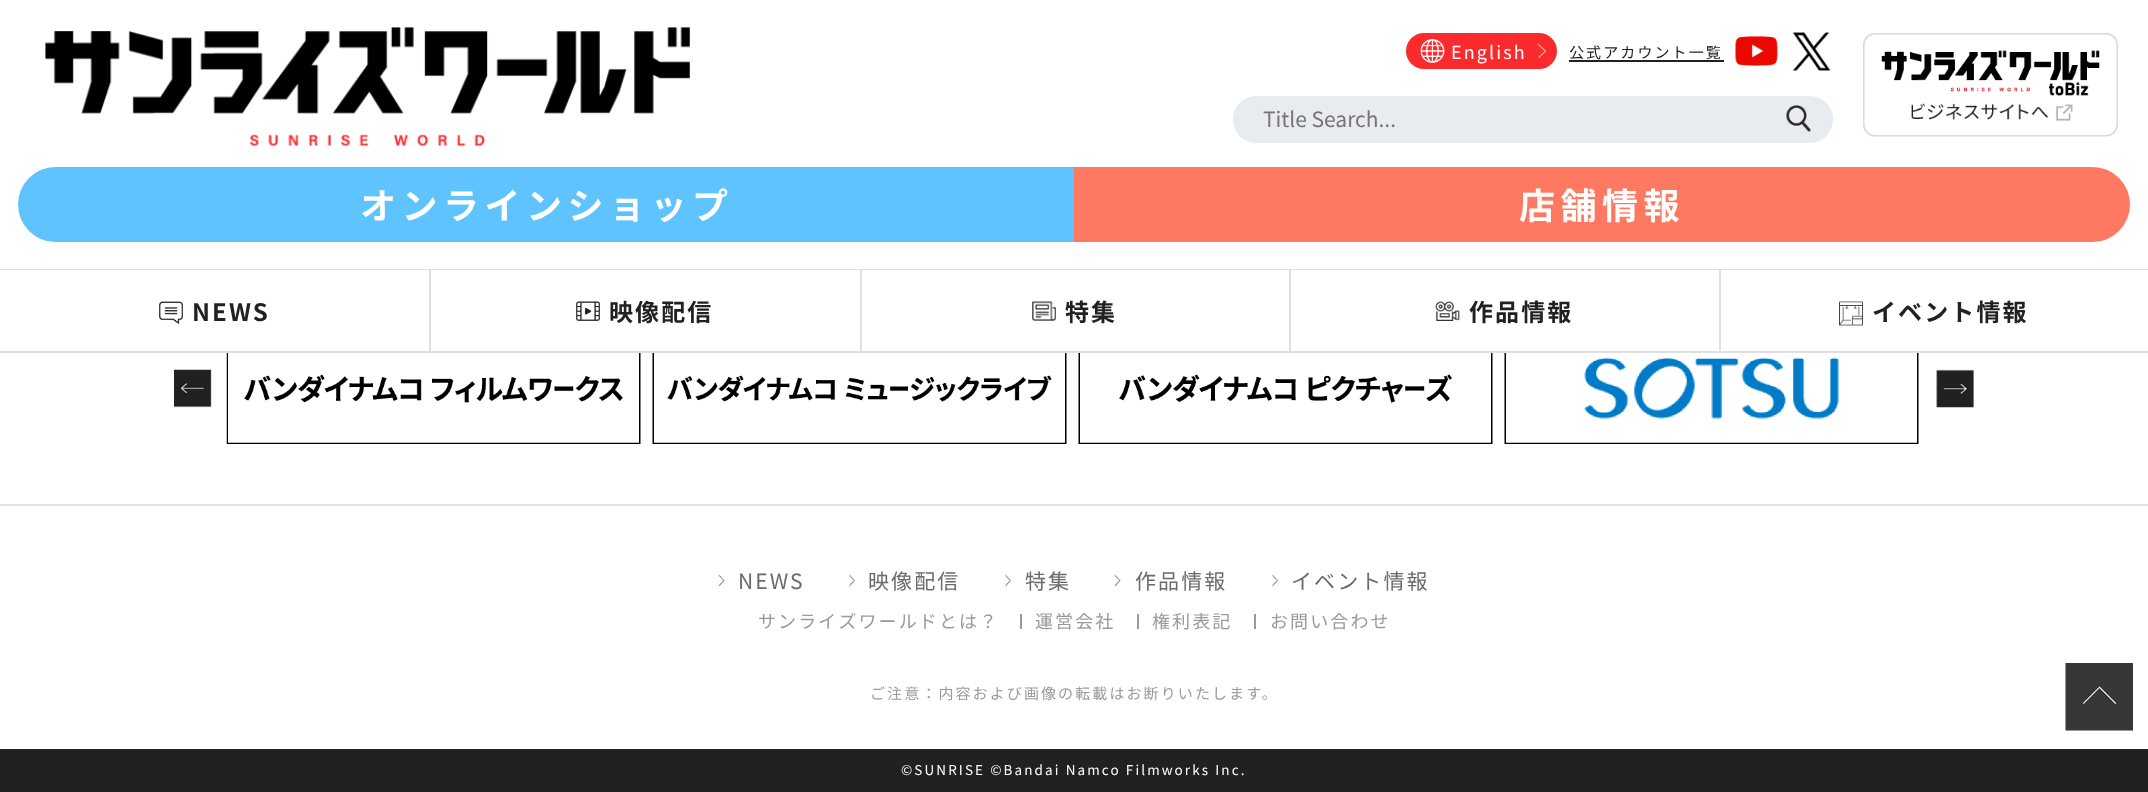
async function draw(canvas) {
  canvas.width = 2148;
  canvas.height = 792;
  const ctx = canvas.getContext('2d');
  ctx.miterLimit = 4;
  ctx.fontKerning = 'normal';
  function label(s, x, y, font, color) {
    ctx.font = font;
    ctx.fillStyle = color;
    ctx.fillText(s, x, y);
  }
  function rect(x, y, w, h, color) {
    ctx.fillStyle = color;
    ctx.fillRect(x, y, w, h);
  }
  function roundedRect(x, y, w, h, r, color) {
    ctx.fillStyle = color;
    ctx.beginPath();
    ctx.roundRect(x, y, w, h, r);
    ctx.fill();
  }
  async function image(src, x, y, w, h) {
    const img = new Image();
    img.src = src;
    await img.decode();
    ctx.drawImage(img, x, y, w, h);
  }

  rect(0, 0, 2148, 792, '#fff');
  rect(0, 269, 2148, 1, '#e0e0e0');
  await image('assets/img1.png', 45, 27, 645, 119);
  roundedRect(1406, 33, 151, 36, 18, '#fa2a2d');
  await image('assets/img2.png', 1537, 43, 9, 15);
  await image('assets/img3.png', 1420, 39, 25, 24);
  ctx.letterSpacing = '2.1px';
  label('English', 1451, 59, '18px Noto Sans JP', '#fff');
  label('公式アカウント一覧', 1569, 58, '15px Noto Sans JP', '#212121');
  rect(1569, 60, 155, 2, '#212121');
  await image('assets/img4.png', 1735, 36, 43, 30);
  await image('assets/img5.png', 1792, 32, 39, 39);
  roundedRect(1233, 96, 600, 47, 23, '#e8ebf0');
  await image('assets/img6.png', 1786, 105, 25, 27);
  ctx.letterSpacing = '0px';
  label('Title Search...', 1263, 127, '21px Noto Sans JP', '#757575');
  await image('assets/img7.png', 1863, 33, 255, 104);
  ctx.fillStyle = '#5fc3ff';
  ctx.beginPath();
  ctx.roundRect(18, 167, 1056, 75, [37.5, 0, 0, 37.5]);
  ctx.fill();
  ctx.letterSpacing = '5.5px';
  label('オンラインショップ', 360, 219, 'bold 36px Noto Sans JP', '#fff');
  ctx.fillStyle = '#ff7862';
  ctx.beginPath();
  ctx.roundRect(1074, 167, 1056, 75, [0, 37.5, 37.5, 0]);
  ctx.fill();
  label('店舗情報', 1519, 219, 'bold 36px Noto Sans JP', '#fff');
  rect(0, 351, 2148, 2, '#e0e0e0');
  await image('assets/img8.png', 159, 301, 24, 23);
  ctx.letterSpacing = '2.1px';
  label('NEWS', 192, 321, 'bold 24px Noto Sans JP', '#212121');
  rect(429, 270, 2, 81, '#e0e0e0');
  await image('assets/img9.png', 576, 301, 24, 20);
  label('映像配信', 609, 321, 'bold 24px Noto Sans JP', '#212121');
  rect(860, 270, 2, 81, '#e0e0e0');
  await image('assets/img10.png', 1032, 301, 24, 20);
  label('特集', 1065, 321, 'bold 24px Noto Sans JP', '#212121');
  rect(1289, 270, 2, 81, '#e0e0e0');
  await image('assets/img11.png', 1435, 301, 25, 20);
  label('作品情報', 1469, 321, 'bold 24px Noto Sans JP', '#212121');
  rect(1719, 270, 2, 81, '#e0e0e0');
  await image('assets/img12.png', 1839, 301, 24, 25);
  label('イベント情報', 1872, 321, 'bold 24px Noto Sans JP', '#212121');
  await image('assets/img13.png', 226, 353, 415, 91);
  await image('assets/img14.png', 652, 353, 415, 91);
  await image('assets/img15.png', 1078, 353, 415, 91);
  await image('assets/img16.png', 1504, 353, 415, 91);
  await image('assets/img17.png', 174, 369, 38, 39);
  await image('assets/img18.png', 1936, 369, 38, 39);
  rect(0, 504, 2148, 2, '#e0e0e0');
  await image('assets/img19.png', 718, 574, 7, 13);
  label('NEWS', 738, 589, '21px Noto Sans JP', '#6c6b69');
  await image('assets/img20.png', 849, 574, 6, 13);
  label('映像配信', 868, 589, '21px Noto Sans JP', '#6c6b69');
  await image('assets/img20.png', 1005, 574, 6, 13);
  label('特集', 1025, 589, '21px Noto Sans JP', '#6c6b69');
  await image('assets/img19.png', 1114, 574, 7, 13);
  label('作品情報', 1135, 589, '21px Noto Sans JP', '#6c6b69');
  await image('assets/img20.png', 1272, 574, 6, 13);
  label('イベント情報', 1291, 589, '21px Noto Sans JP', '#6c6b69');
  label('サンライズワールドとは？', 758, 628, '18px Noto Sans JP', '#9a9a9a');
  rect(1020, 614, 2, 15, '#9a9a9a');
  label('運営会社', 1035, 628, '18px Noto Sans JP', '#9a9a9a');
  rect(1137, 614, 2, 15, '#9a9a9a');
  label('権利表記', 1152, 628, '18px Noto Sans JP', '#9a9a9a');
  rect(1254, 614, 2, 15, '#9a9a9a');
  label('お問い合わせ', 1270, 628, '18px Noto Sans JP', '#9a9a9a');
  label('ご注意：内容および画像の転載はお断りいたします。', 870, 699, '15px Noto Sans JP', '#9a9a9a');
  await image('assets/img21.png', 2065, 663, 68, 68);
  rect(0, 749, 2148, 43, '#212121');
  label('©SUNRISE ©Bandai Namco Filmworks Inc.', 901, 775, '13.5px Noto Sans JP', '#fff');
}

draw(document.querySelector('canvas'));
